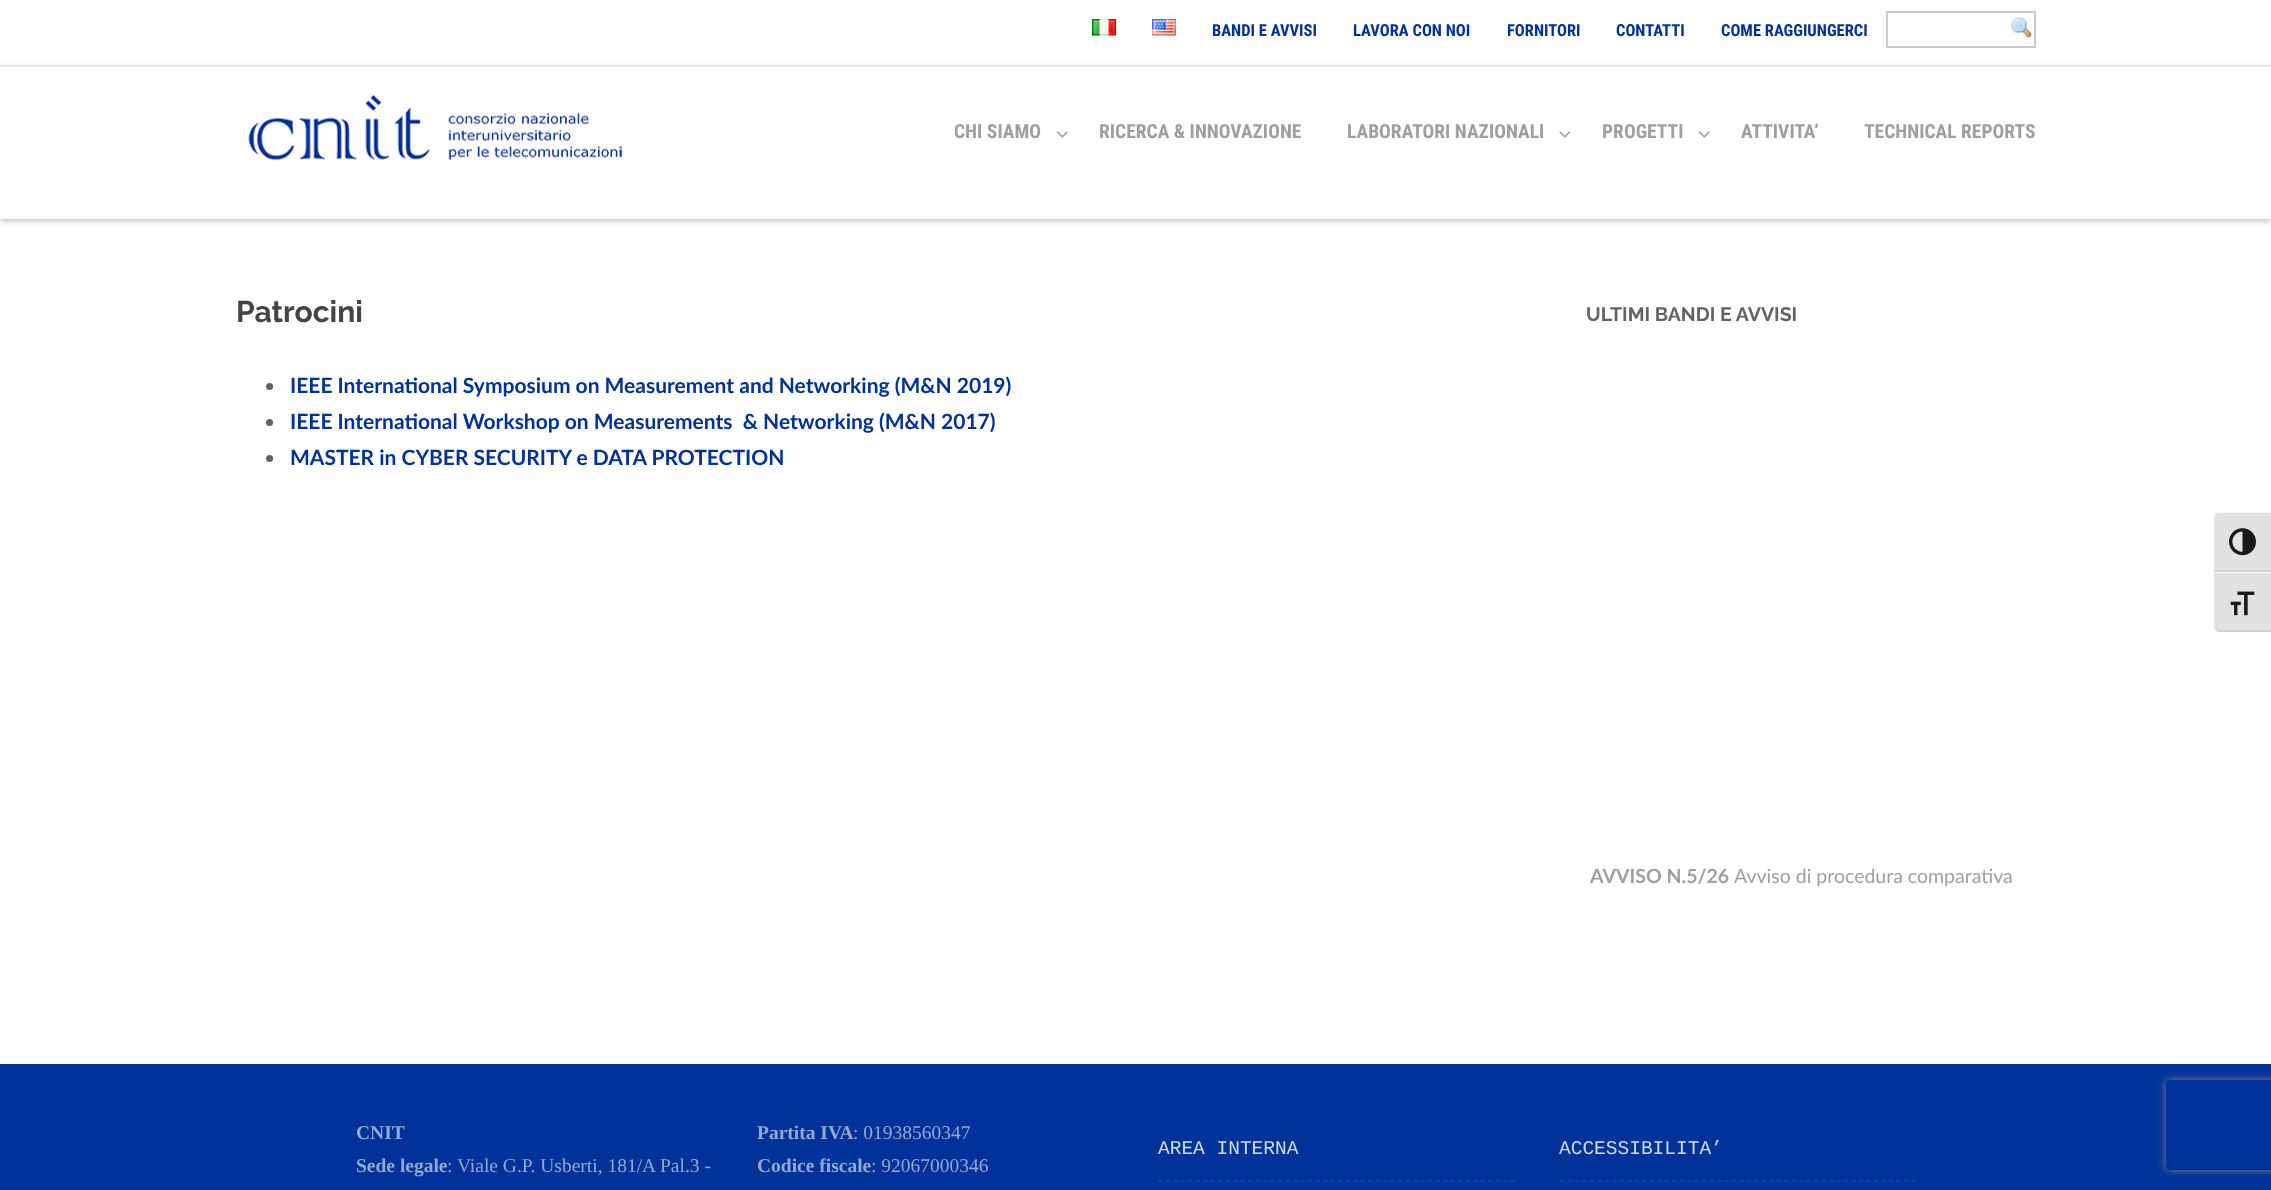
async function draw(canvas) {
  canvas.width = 2271;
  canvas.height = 1190;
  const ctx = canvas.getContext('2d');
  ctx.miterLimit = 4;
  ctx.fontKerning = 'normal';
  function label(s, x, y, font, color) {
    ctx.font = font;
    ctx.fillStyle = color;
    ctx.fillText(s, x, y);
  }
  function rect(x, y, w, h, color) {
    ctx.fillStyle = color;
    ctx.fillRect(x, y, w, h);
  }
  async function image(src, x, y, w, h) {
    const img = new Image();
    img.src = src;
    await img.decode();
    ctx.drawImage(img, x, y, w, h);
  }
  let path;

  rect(0, 0, 2271, 1190, '#fff');
  rect(0, 65, 2271, 2, '#eee');
  await image('assets/img1.png', 1092, 19, 24, 17);
  await image('assets/img2.png', 1152, 19, 24, 17);
  label('BANDI E AVVISI', 1212, 36, 'bold 16.5px Roboto Condensed', '#013299');
  label('LAVORA CON NOI', 1353, 36, 'bold 16.5px Roboto Condensed', '#013299');
  label('FORNITORI', 1507, 36, 'bold 16.5px Roboto Condensed', '#013299');
  label('CONTATTI', 1616, 36, 'bold 16.5px Roboto Condensed', '#013299');
  label('COME RAGGIUNGERCI', 1721, 36, 'bold 16.5px Roboto Condensed', '#013299');
  await image('assets/img3.png', 2011, 17, 21, 22);
  ctx.strokeStyle = '#ccc';
  ctx.lineWidth = 2;
  ctx.strokeRect(1887, 12, 148, 35);
  ctx.save();
  path = new Path2D('M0 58H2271V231H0ZM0 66H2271V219H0Z');
  ctx.clip(path, 'evenodd');
  ctx.fillStyle = '#a7a9a4bf';
  ctx.filter = 'blur(3px)';
  ctx.beginPath();
  ctx.rect(0, 68, 2271, 153);
  ctx.fill();
  ctx.filter = 'none';
  ctx.restore();
  await image('assets/img4.png', 248, 94, 374, 66);
  label('CHI SIAMO', 954, 138, 'bold 19.5px Roboto Condensed', '#9f9f9f');
  await image('assets/img5.png', 1056, 131, 12, 7);
  label('RICERCA & INNOVAZIONE', 1099, 138, 'bold 19.5px Roboto Condensed', '#9f9f9f');
  label('LABORATORI NAZIONALI', 1347, 138, 'bold 19.5px Roboto Condensed', '#9f9f9f');
  await image('assets/img6.png', 1559, 131, 12, 7);
  label('PROGETTI', 1602, 138, 'bold 19.5px Roboto Condensed', '#9f9f9f');
  await image('assets/img5.png', 1698, 131, 12, 7);
  label('ATTIVITA’', 1741, 138, 'bold 19.5px Roboto Condensed', '#9f9f9f');
  label('TECHNICAL REPORTS', 1864, 138, 'bold 19.5px Roboto Condensed', '#9f9f9f');
  label('Patrocini', 236, 322, 'bold 30px Raleway', '#444');
  ctx.fillStyle = '#616161';
  ctx.beginPath();
  ctx.arc(269.5, 386.5, 3.5, 0, 2 * Math.PI);
  ctx.fill();
  label('IEEE International Symposium on Measurement and Networking (M&N 2019)', 290, 393, 'bold 21px Lato', '#013299');
  ctx.fillStyle = '#616161';
  ctx.beginPath();
  ctx.arc(269.5, 422.5, 3.5, 0, 2 * Math.PI);
  ctx.fill();
  label('IEEE International Workshop on Measurements  & Networking (M&N 2017)', 290, 429, 'bold 21px Lato', '#013299');
  ctx.fillStyle = '#616161';
  ctx.beginPath();
  ctx.arc(269.5, 458.5, 3.5, 0, 2 * Math.PI);
  ctx.fill();
  label('MASTER in CYBER SECURITY e DATA PROTECTION', 290, 465, 'bold 21px Lato', '#013299');
  label('ULTIMI BANDI E AVVISI', 1586, 321, 'bold 19.5px Raleway', '#636363');
  label('AVVISO N.5/26', 1590, 883, 'bold 19.5px Lato', '#9f9f9f');
  label('Avviso di procedura comparativa', 1734, 883, '19.5px Lato', '#9f9f9f');
  rect(0, 1064, 2271, 126, '#013299');
  label('CNIT', 356, 1139, 'bold 19.5px Liberation Serif', '#90aad5');
  label('Sede legale', 356, 1172, 'bold 19.5px Liberation Serif', '#90aad5');
  label(': Viale G.P. Usberti, 181/A Pal.3 -', 447, 1172, '19.5px Liberation Serif', '#90aad5');
  label('Partita IVA', 757, 1139, 'bold 19.5px Liberation Serif', '#90aad5');
  label(': 01938560347', 853, 1139, '19.5px Liberation Serif', '#90aad5');
  label('Codice fiscale', 757, 1172, 'bold 19.5px Liberation Serif', '#90aad5');
  label(': 92067000346', 871, 1172, '19.5px Liberation Serif', '#90aad5');
  path = new Path2D('M1158 1181H1515');
  ctx.strokeStyle = '#1a47a3';
  ctx.lineWidth = 1.5;
  ctx.setLineDash([4.5, 3]);
  ctx.stroke(path);
  label('AREA INTERNA', 1158, 1154, '19.5px Liberation Mono', '#cddeee');
  path = new Path2D('M1560 1181H1915.5');
  ctx.setLineDash([4.5, 2.97]);
  ctx.stroke(path);
  label('ACCESSIBILITA’', 1559, 1154, '19.5px Liberation Mono', '#cddeee');
  ctx.fillStyle = '#e2e2e2';
  ctx.beginPath();
  ctx.roundRect(2214, 512, 57, 60, [6, 0, 0, 0]);
  ctx.fill();
  ctx.fillStyle = '#f5f5f5';
  path = new Path2D('M2220 512H2271V513H2220C2217 513 2214 515 2214 518C2214 514 2217 512 2220 512Z');
  ctx.fill(path);
  rect(2214, 570, 57, 2, '#d2d2d2');
  await image('assets/img7.png', 2229, 528, 27, 28);
  ctx.fillStyle = '#e2e2e2';
  ctx.beginPath();
  ctx.roundRect(2214, 572, 57, 60, [0, 0, 0, 6]);
  ctx.fill();
  rect(2214, 572, 57, 1, '#f5f5f5');
  ctx.fillStyle = '#d2d2d2';
  path = new Path2D('M2271 632H2218C2216 631 2214 628 2214 626C2214 628 2217 630 2220 630H2271Z');
  ctx.fill(path);
  await image('assets/img8.png', 2230, 591, 25, 25);
  ctx.save();
  path = new Path2D('M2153 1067H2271V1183H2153ZM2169 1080H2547C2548.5 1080 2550 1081.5 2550 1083V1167C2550 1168.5 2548.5 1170 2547 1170H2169C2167.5 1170 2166 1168.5 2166 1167V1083C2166 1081.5 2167.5 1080 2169 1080Z');
  ctx.clip(path, 'evenodd');
  ctx.fillStyle = '#808080';
  ctx.filter = 'blur(4px)';
  ctx.beginPath();
  ctx.roundRect(2166, 1080, 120, 90, 3);
  ctx.fill();
  ctx.filter = 'none';
  ctx.restore();
}

draw(document.querySelector('canvas'));
